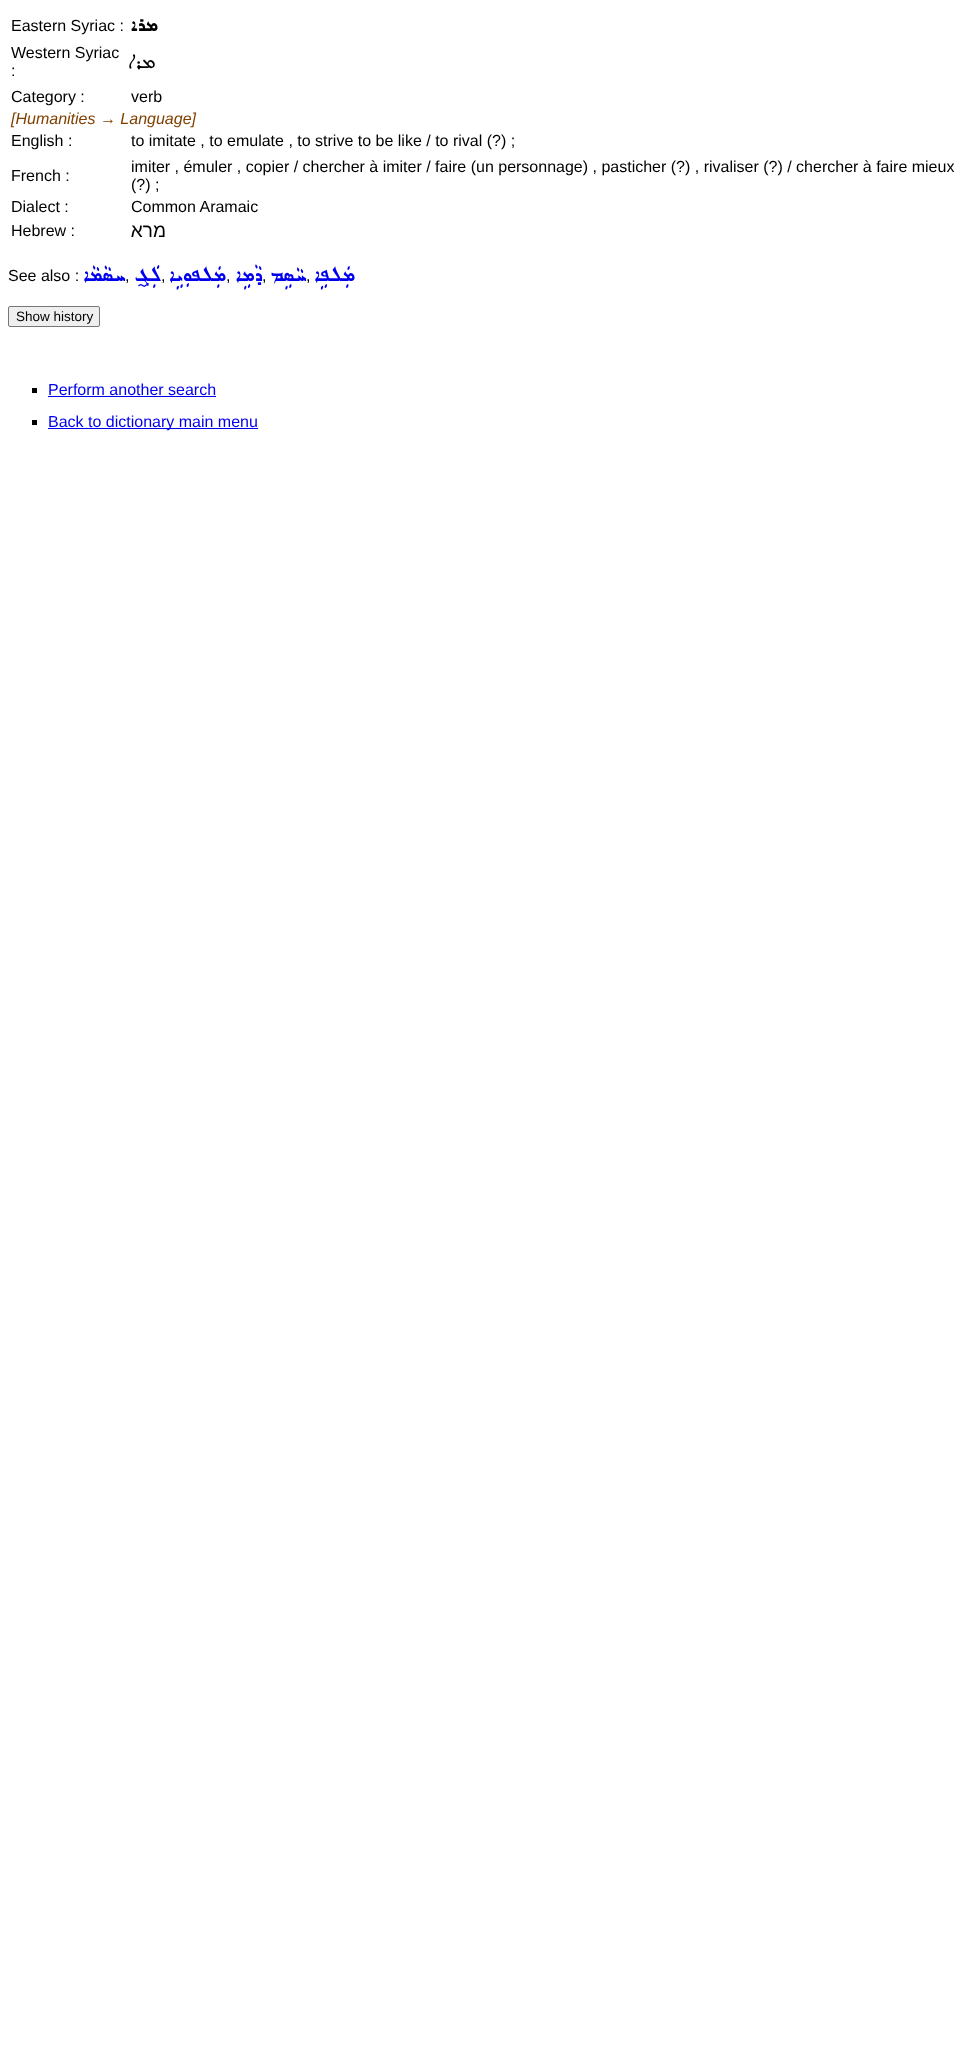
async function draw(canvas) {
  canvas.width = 978;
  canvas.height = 2059;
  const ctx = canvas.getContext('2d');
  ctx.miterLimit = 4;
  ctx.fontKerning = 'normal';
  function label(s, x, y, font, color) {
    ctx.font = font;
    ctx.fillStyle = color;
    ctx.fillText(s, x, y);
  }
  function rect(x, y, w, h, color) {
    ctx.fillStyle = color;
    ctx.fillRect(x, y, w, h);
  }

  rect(0, 0, 978, 2059, '#fff');
  label('Eastern Syriac :', 11, 31, '16px Liberation Sans', '#000');
  ctx.direction = 'rtl';
  label('ܡܪܐ', 158, 31, '26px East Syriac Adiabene', '#000');
  ctx.direction = 'ltr';
  label('Western Syriac', 11, 58, '16px Liberation Sans', '#000');
  label(':', 11, 76, '16px Liberation Sans', '#000');
  ctx.direction = 'rtl';
  label('ܡܪܐ', 155, 68, '27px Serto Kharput', '#000');
  ctx.direction = 'ltr';
  label('Category :', 11, 102, '16px Liberation Sans', '#000');
  label('verb', 131, 102, '16px Liberation Sans', '#000');
  label('[Humanities → Language]', 11, 124, 'italic 16px Liberation Sans', '#804000');
  label('English :', 11, 146, '16px Liberation Sans', '#000');
  label('to imitate , to emulate , to strive to be like / to rival (?) ;', 131, 146, '16px Liberation Sans', '#000');
  label('French :', 11, 181, '16px Liberation Sans', '#000');
  label('imiter , émuler , copier / chercher à imiter / faire (un personnage) , pasticher (?) , rivaliser (?) / chercher à faire mieux', 131, 172, '16px Liberation Sans', '#000');
  label('(?) ;', 131, 190, '16px Liberation Sans', '#000');
  label('Dialect :', 11, 212, '16px Liberation Sans', '#000');
  label('Common Aramaic', 131, 212, '16px Liberation Sans', '#000');
  label('Hebrew :', 11, 236, '16px Liberation Sans', '#000');
  ctx.direction = 'rtl';
  label('מרא', 166, 237, '19px Liberation Sans', '#000');
  ctx.direction = 'ltr';
  label('See also :', 8, 281, '16px Liberation Sans', '#000');
  ctx.direction = 'rtl';
  label('ܚܣܵܡܵܐ', 125, 281, '26px East Syriac Adiabene', '#00e');
  ctx.direction = 'ltr';
  label(',', 125, 281, '16px Liberation Sans', '#000');
  ctx.direction = 'rtl';
  label('ܠܲܓ̰', 161, 281, '26px East Syriac Adiabene', '#00e');
  ctx.direction = 'ltr';
  label(',', 161, 281, '16px Liberation Sans', '#000');
  ctx.direction = 'rtl';
  label('ܡܲܠܦܘܼܝܹܐ', 226, 281, '26px East Syriac Adiabene', '#00e');
  ctx.direction = 'ltr';
  label(',', 226, 281, '16px Liberation Sans', '#000');
  ctx.direction = 'rtl';
  label('ܕܵܡܹܐ', 262, 281, '26px East Syriac Adiabene', '#00e');
  ctx.direction = 'ltr';
  label(',', 262, 281, '16px Liberation Sans', '#000');
  ctx.direction = 'rtl';
  label('ܚܵܣܹܡ', 306, 281, '26px East Syriac Adiabene', '#00e');
  ctx.direction = 'ltr';
  label(',', 306, 281, '16px Liberation Sans', '#000');
  ctx.direction = 'rtl';
  label('ܡܲܠܦܹܐ', 355, 281, '26px East Syriac Adiabene', '#00e');
  ctx.fillStyle = '#efefef';
  ctx.beginPath();
  ctx.roundRect(8.5, 306.5, 91, 20, 1.5);
  ctx.fill();
  ctx.strokeStyle = '#767676';
  ctx.stroke();
  ctx.direction = 'ltr';
  label('Show history', 16, 321, '13.5px Liberation Sans', '#000');
  rect(32, 388, 5, 5, '#000');
  label('Perform another search', 48, 395, '16px Liberation Sans', '#00e');
  rect(48, 396, 168, 1, '#00e');
  rect(32, 420, 5, 5, '#000');
  rect(48, 428, 210, 1, '#00e');
  label('Back to dictionary main menu', 48, 427, '16px Liberation Sans', '#00e');
}

draw(document.querySelector('canvas'));
